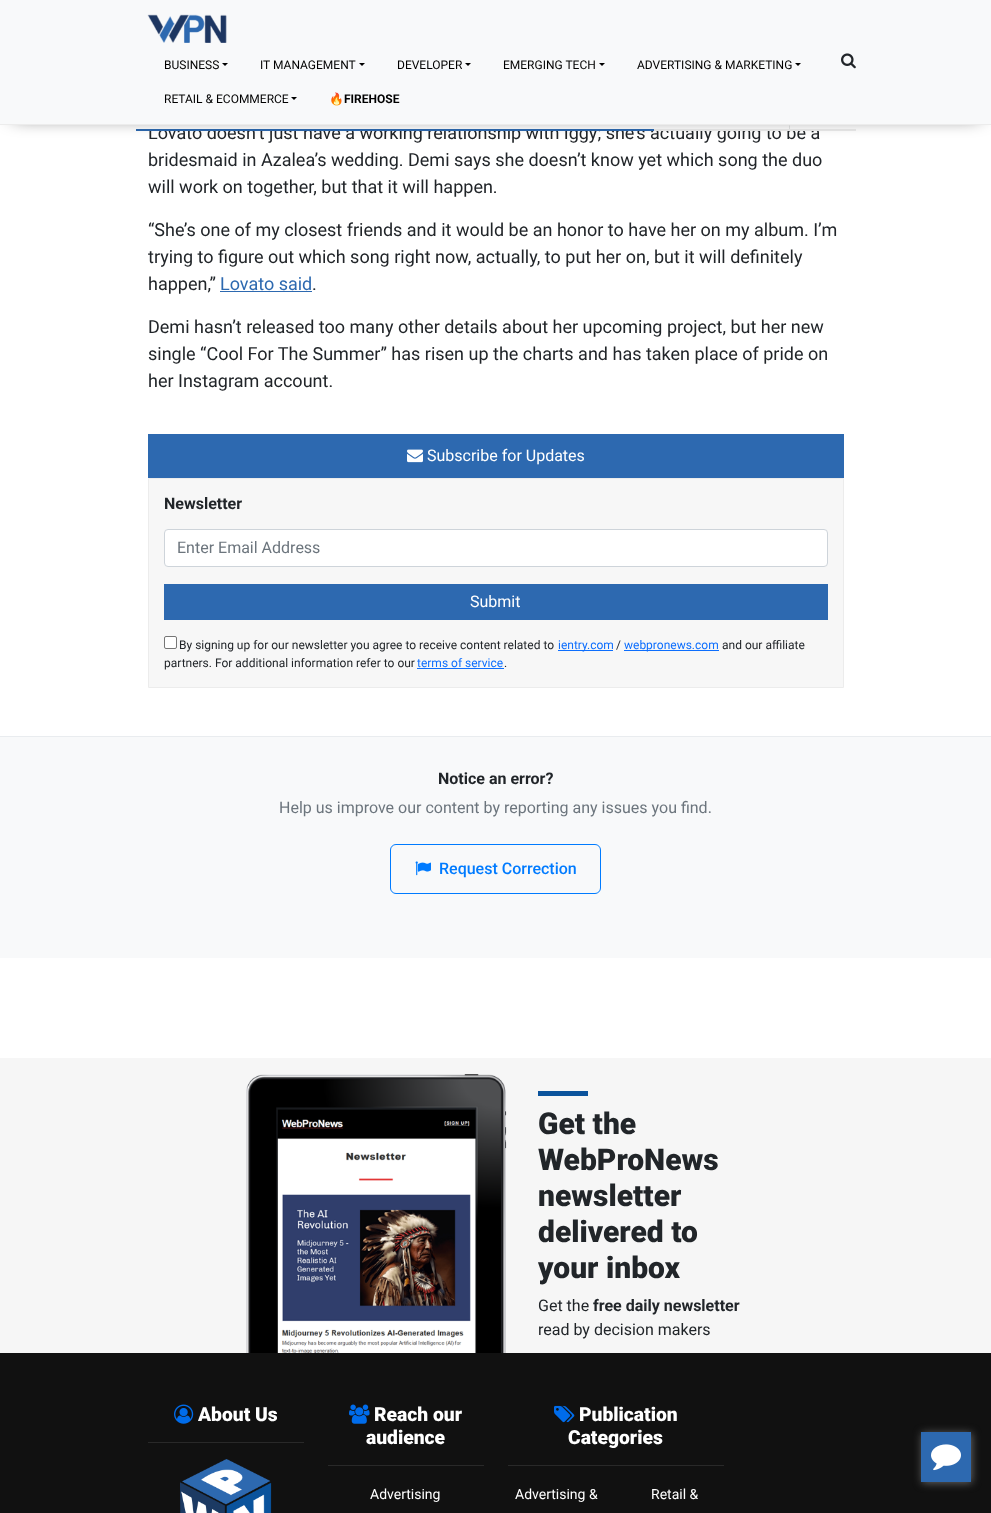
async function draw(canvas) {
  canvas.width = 991;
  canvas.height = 1513;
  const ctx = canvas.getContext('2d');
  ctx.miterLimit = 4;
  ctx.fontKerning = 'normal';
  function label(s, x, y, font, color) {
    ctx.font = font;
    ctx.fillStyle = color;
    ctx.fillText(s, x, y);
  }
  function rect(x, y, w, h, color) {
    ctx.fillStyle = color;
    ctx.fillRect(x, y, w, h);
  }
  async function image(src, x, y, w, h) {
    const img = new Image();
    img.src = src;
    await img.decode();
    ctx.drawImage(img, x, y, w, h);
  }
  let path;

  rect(0, 0, 991, 1513, '#fff');
  label('Lovato doesn’t just have a working relationship with Iggy; she’s actually going to be a', 148, 139, '18px Roboto', '#212529');
  rect(148, 125, 641, 4, '#fff');
  rect(654, 129, 202, 2, '#ececec');
  rect(136, 129, 518, 2, '#2d69b0');
  ctx.fillStyle = '#000';
  ctx.filter = 'blur(10px)';
  ctx.beginPath();
  ctx.rect(13, 12, 967, 102);
  ctx.fill();
  ctx.filter = 'none';
  rect(0, 124, 991, 1, '#ececec');
  rect(0, 0, 991, 124, '#f8f9fa');
  await image('assets/img1.png', 147, 14, 80, 29);
  label('BUSINESS', 164, 69, '12px Roboto', '#000');
  path = new Path2D('M222 63H228L225 66Z');
  ctx.fill(path);
  label('IT MANAGEMENT', 260, 69, '12px Roboto', '#000');
  path = new Path2D('M359 63H365L362 66Z');
  ctx.fill(path);
  label('DEVELOPER', 397, 69, '12px Roboto', '#000');
  path = new Path2D('M465 63H471L468 66Z');
  ctx.fill(path);
  label('EMERGING TECH', 503, 69, '12px Roboto', '#000');
  path = new Path2D('M599 63H605L602 66Z');
  ctx.fill(path);
  label('ADVERTISING & MARKETING', 637, 69, '12px Roboto', '#000');
  path = new Path2D('M795 63H801L798 66Z');
  ctx.fill(path);
  label('RETAIL & ECOMMERCE', 164, 103, '12px Roboto', '#000');
  path = new Path2D('M291 97H297L294 100Z');
  ctx.fill(path);
  label('🔥', 329, 103, 'bold 12px Noto Color Emoji', '#000');
  label('FIREHOSE', 344, 103, 'bold 12px Roboto', '#000');
  await image('assets/img2.png', 841, 53, 15, 16);
  label('bridesmaid in Azalea’s wedding. Demi says she doesn’t know yet which song the duo', 148, 166, '18px Roboto', '#212529');
  label('will work on together, but that it will happen.', 148, 193, '18px Roboto', '#212529');
  label('“She’s one of my closest friends and it would be an honor to have her on my album. I’m', 148, 236, '18px Roboto', '#212529');
  label('trying to figure out which song right now, actually, to put her on, but it will definitely', 148, 263, '18px Roboto', '#212529');
  label('happen,”', 148, 290, '18px Roboto', '#212529');
  label('Lovato said', 220, 290, '18px Roboto', '#2d69b0');
  rect(220, 291, 92, 1, '#2d69b0');
  label('.', 312, 290, '18px Roboto', '#212529');
  label('Demi hasn’t released too many other details about her upcoming project, but her new', 148, 333, '18px Roboto', '#212529');
  label('single “Cool For The Summer” has risen up the charts and has taken place of pride on', 148, 360, '18px Roboto', '#212529');
  label('her Instagram account.', 148, 387, '18px Roboto', '#212529');
  rect(148, 434, 696, 44, '#2d69b0');
  await image('assets/img3.png', 407, 449, 16, 14);
  label('Subscribe for Updates', 427, 461, '16px Roboto', '#fff');
  ctx.fillStyle = '#f7f7f7';
  ctx.beginPath();
  ctx.rect(148.5, 478.5, 695, 209);
  ctx.fill();
  ctx.strokeStyle = '#ececec';
  ctx.stroke();
  label('Newsletter', 164, 509, 'bold 16px Roboto', '#212529');
  ctx.fillStyle = '#fff';
  ctx.beginPath();
  ctx.roundRect(164.5, 529.5, 663, 37, 3.5);
  ctx.fill();
  ctx.strokeStyle = '#ced4da';
  ctx.stroke();
  label('Enter Email Address', 177, 553, '16px Roboto', '#6c757d');
  rect(164, 584, 664, 36, '#2d69b0');
  label('Submit', 470, 607, '16px Roboto', '#fff');
  ctx.beginPath();
  ctx.roundRect(164.5, 636.5, 12, 12, 1.5);
  ctx.fill();
  ctx.strokeStyle = '#767676';
  ctx.stroke();
  label('By signing up for our newsletter you agree to receive content related to', 179, 649, '12px Roboto', '#212529');
  rect(558, 650, 55, 1, '#0d6efd');
  label('ientry.com', 558, 649, '12px Roboto', '#0d6efd');
  label('/', 616, 649, '12px Roboto', '#212529');
  rect(624, 650, 95, 1, '#0d6efd');
  label('webpronews.com', 624, 649, '12px Roboto', '#0d6efd');
  label('and our affiliate', 722, 649, '12px Roboto', '#212529');
  label('partners. For additional information refer to our', 164, 667, '12px Roboto', '#212529');
  label('terms of service', 417, 667, '12px Roboto', '#0d6efd');
  rect(417, 668, 87, 1, '#0d6efd');
  label('.', 504, 667, '12px Roboto', '#212529');
  rect(0, 737, 991, 221, '#f8f9fa');
  rect(0, 736, 991, 1, '#e9ecef');
  label('Notice an error?', 438, 784, 'bold 16px Roboto', '#212529');
  label('Help us improve our content by reporting any issues you find.', 279, 813, '16px Roboto', '#6c757d');
  ctx.beginPath();
  ctx.roundRect(390.5, 844.5, 210, 49, 5.5);
  ctx.strokeStyle = '#007bff';
  ctx.stroke();
  await image('assets/img4.png', 415, 861, 16, 15);
  label('Request Correction', 439, 874, '500 16px Roboto', '#007bff');
  rect(0, 1058, 991, 295, '#f6f6f6');
  await image('assets/img5.png', 246, 1074, 261, 279);
  rect(538, 1091, 50, 5, '#0b539c');
  label('Get the', 538, 1134, '900 30px Roboto', '#212529');
  label('WebProNews', 538, 1170, '900 30px Roboto', '#212529');
  label('newsletter', 538, 1206, '900 30px Roboto', '#212529');
  label('delivered to', 538, 1242, '900 30px Roboto', '#212529');
  label('your inbox', 538, 1278, '900 30px Roboto', '#212529');
  label('Get the', 538, 1311, '16px Roboto', '#212529');
  label('free daily newsletter', 593, 1311, 'bold 16px Roboto', '#212529');
  label('read by decision makers', 538, 1335, '16px Roboto', '#212529');
  rect(0, 1353, 991, 160, '#111');
  rect(148, 1442, 156, 1, '#292929');
  await image('assets/img6.png', 174, 1404, 20, 20);
  label('About Us', 198, 1421, '900 19.25px Roboto', '#fff');
  await image('assets/img7.png', 180, 1459, 92, 54);
  rect(328, 1465, 156, 1, '#292929');
  await image('assets/img8.png', 349, 1404, 21, 20);
  label('Reach our', 374, 1421, '900 19.25px Roboto', '#fff');
  label('audience', 366, 1444, '900 19.25px Roboto', '#fff');
  label('Advertising', 370, 1499, '14px Roboto', '#fff');
  rect(508, 1465, 216, 1, '#292929');
  await image('assets/img9.png', 554, 1405, 21, 18);
  label('Publication', 579, 1421, '900 19.25px Roboto', '#fff');
  label('Categories', 568, 1444, '900 19.25px Roboto', '#fff');
  label('Advertising &', 515, 1499, '14px Roboto', '#fff');
  label('Retail &', 651, 1499, '14px Roboto', '#fff');
  ctx.fillStyle = '#666';
  ctx.filter = 'blur(4.5px)';
  ctx.beginPath();
  ctx.rect(922, 1433, 50, 50);
  ctx.fill();
  ctx.filter = 'none';
  rect(921, 1432, 50, 50, '#2d69b0');
  await image('assets/img10.png', 931, 1444, 30, 27);
}

draw(document.querySelector('canvas'));
